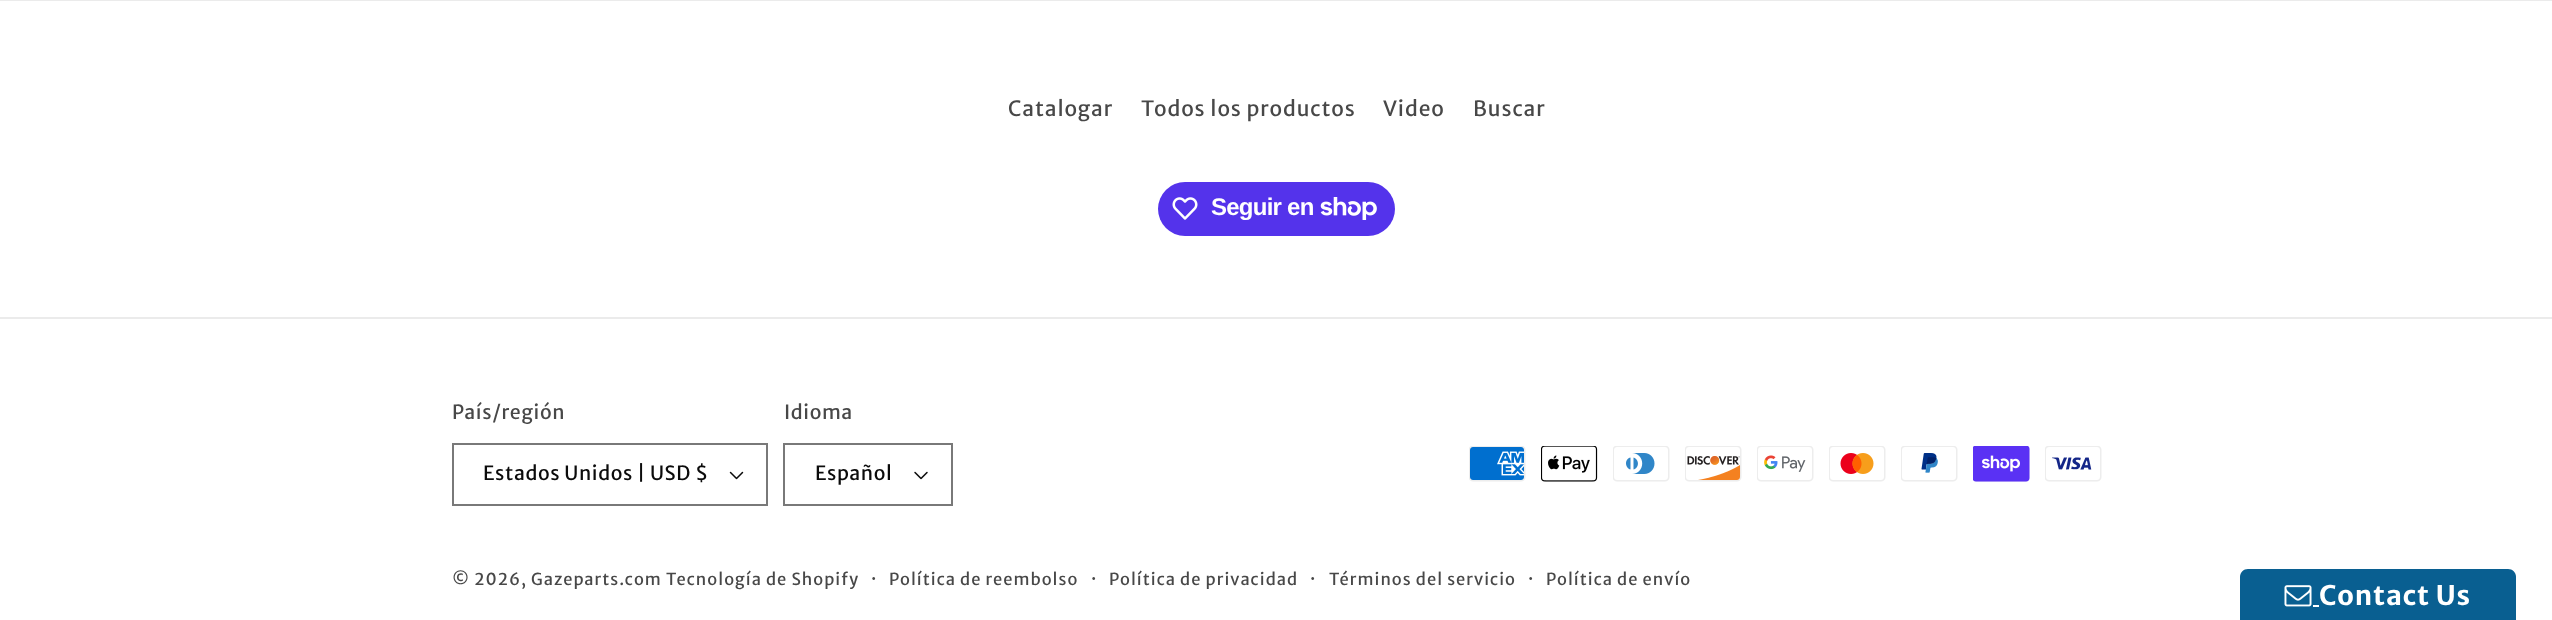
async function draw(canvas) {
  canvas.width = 2552;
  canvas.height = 620;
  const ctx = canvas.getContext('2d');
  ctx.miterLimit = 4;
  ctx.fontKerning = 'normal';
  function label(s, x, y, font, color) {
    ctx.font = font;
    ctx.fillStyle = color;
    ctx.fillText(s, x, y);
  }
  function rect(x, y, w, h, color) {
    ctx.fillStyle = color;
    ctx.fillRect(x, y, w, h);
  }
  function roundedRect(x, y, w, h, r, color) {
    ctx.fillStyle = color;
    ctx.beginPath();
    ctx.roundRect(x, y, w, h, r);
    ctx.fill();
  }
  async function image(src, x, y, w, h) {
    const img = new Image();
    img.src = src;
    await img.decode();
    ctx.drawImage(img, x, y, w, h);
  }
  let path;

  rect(0, 0, 2552, 620, '#fff');
  rect(0, 0, 2552, 1, '#ebebeb');
  ctx.letterSpacing = '0.9px';
  label('Catalogar', 1008, 116, '21px Merriweather Sans', '#484848');
  label('Todos los productos', 1141, 116, '21px Merriweather Sans', '#484848');
  label('Video', 1383, 116, '21px Merriweather Sans', '#484848');
  label('Buscar', 1473, 116, '21px Merriweather Sans', '#484848');
  roundedRect(1158, 182, 237, 54, 27, '#5433eb');
  await image('assets/img1.png', 1172, 197, 26, 23);
  ctx.letterSpacing = '-0.75px';
  label('Seguir en', 1211, 215, 'bold 24px Liberation Sans', '#fff');
  await image('assets/img2.png', 1320, 197, 57, 23);
  rect(0, 317, 2552, 2, '#ebebeb');
  ctx.letterSpacing = '0.6px';
  label('País/región', 452, 419, '19.5px Merriweather Sans', '#484848');
  await image('assets/img3.png', 729, 471, 15, 9);
  ctx.strokeStyle = '#797979';
  ctx.lineWidth = 2;
  ctx.strokeRect(453, 444, 314, 61);
  label('Estados Unidos | USD $', 483, 480, '19.5px Merriweather Sans', '#0b0b0b');
  label('Idioma', 784, 419, '19.5px Merriweather Sans', '#484848');
  await image('assets/img4.png', 914, 471, 14, 9);
  ctx.strokeRect(784, 444, 168, 61);
  label('Español', 815, 480, '19.5px Merriweather Sans', '#0b0b0b');
  await image('assets/img5.png', 1469, 446, 57, 36);
  await image('assets/img6.png', 1541, 446, 57, 36);
  await image('assets/img7.png', 1613, 446, 57, 36);
  await image('assets/img8.png', 1685, 446, 57, 36);
  await image('assets/img9.png', 1757, 446, 57, 36);
  await image('assets/img10.png', 1829, 446, 57, 36);
  await image('assets/img11.png', 1901, 446, 57, 36);
  await image('assets/img12.png', 1973, 446, 57, 36);
  await image('assets/img13.png', 2045, 446, 57, 36);
  ctx.letterSpacing = '1.05px';
  label('© 2026, Gazeparts.com', 452, 585, '16.5px Merriweather Sans', '#484848');
  label('Tecnología de Shopify', 666, 585, '16.5px Merriweather Sans', '#484848');
  label('·', 871, 585, '18px Merriweather Sans', '#484848');
  label('Política de reembolso', 889, 585, '16.5px Merriweather Sans', '#484848');
  label('·', 1091, 585, '18px Merriweather Sans', '#484848');
  label('Política de privacidad', 1109, 585, '16.5px Merriweather Sans', '#484848');
  label('·', 1310, 585, '18px Merriweather Sans', '#484848');
  label('Términos del servicio', 1329, 585, '16.5px Merriweather Sans', '#484848');
  label('·', 1528, 585, '18px Merriweather Sans', '#484848');
  label('Política de envío', 1546, 585, '16.5px Merriweather Sans', '#484848');
  ctx.fillStyle = '#095f91';
  path = new Path2D('M2248 569H2508C2512.5 569 2516 572.5 2516 577V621H2240V577C2240 572.5 2243.5 569 2248 569Z');
  ctx.fill(path);
  await image('assets/img14.png', 2284, 585, 28, 22);
  rect(2313, 605, 6, 2, '#fff');
  ctx.letterSpacing = '0.9px';
  label('Contact Us', 2319, 605, 'bold 27px Merriweather Sans', '#fff');
}

draw(document.querySelector('canvas'));
